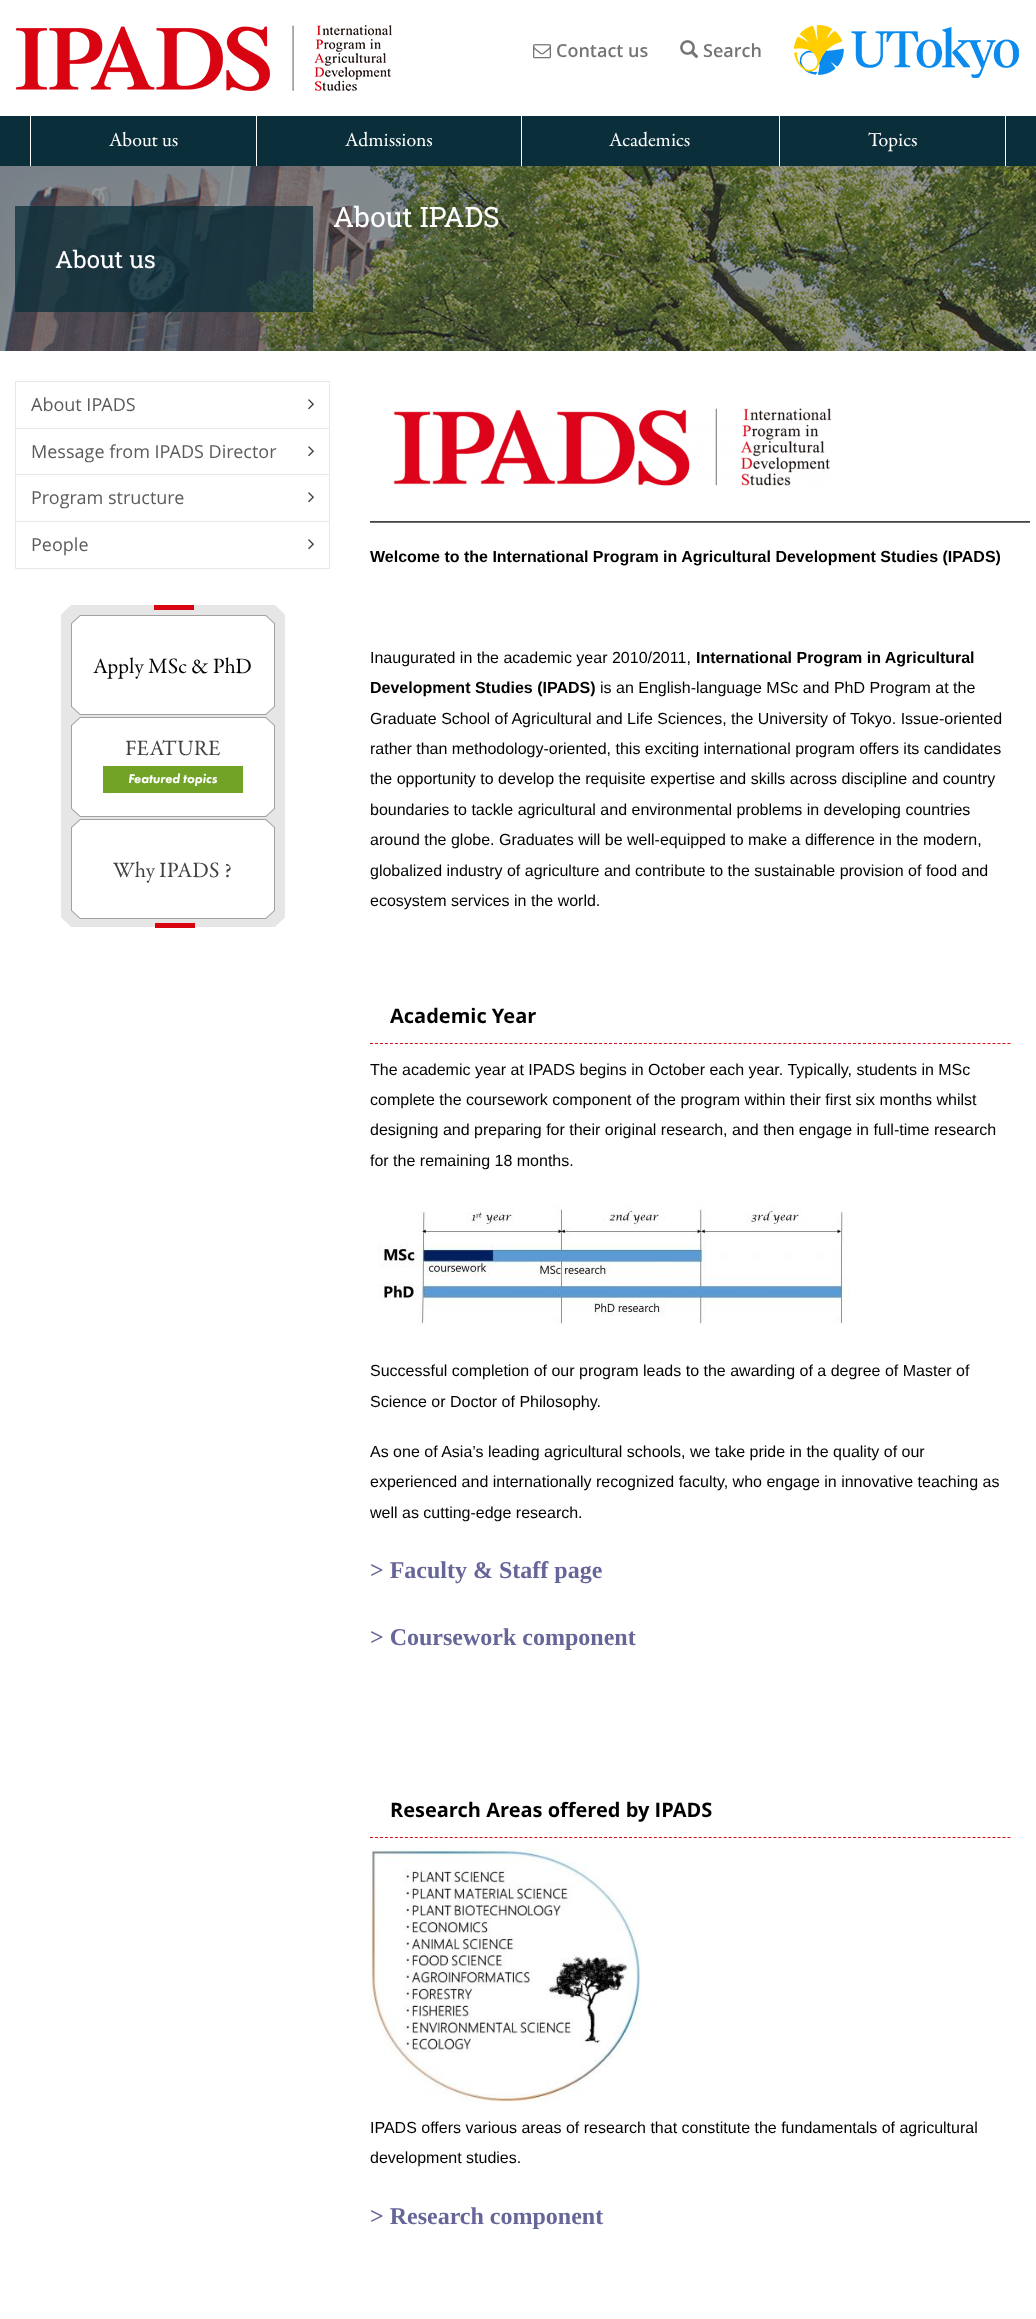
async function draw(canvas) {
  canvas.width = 1036;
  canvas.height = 2319;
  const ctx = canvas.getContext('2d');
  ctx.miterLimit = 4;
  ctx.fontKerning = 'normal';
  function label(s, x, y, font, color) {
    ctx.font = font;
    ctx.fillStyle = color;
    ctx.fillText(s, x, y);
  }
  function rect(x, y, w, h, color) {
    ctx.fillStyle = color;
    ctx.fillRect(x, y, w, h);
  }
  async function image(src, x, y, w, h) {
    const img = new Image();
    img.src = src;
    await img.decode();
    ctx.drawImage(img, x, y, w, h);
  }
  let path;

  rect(0, 0, 1036, 2319, '#fff');
  await image('assets/img1.png', 16, 25, 376, 66);
  await image('assets/img2.png', 533, 44, 18, 15);
  label('Contact us', 556, 57, '600 18px Open Sans', '#757575');
  await image('assets/img3.png', 680, 40, 19, 19);
  label('Search', 703, 57, '600 18px Open Sans', '#757575');
  await image('assets/img4.png', 794, 25, 225, 53);
  rect(0, 116, 1036, 50, '#0b2f3a');
  rect(30, 116, 1, 50, '#fff');
  rect(256, 116, 1, 50, '#fff');
  label('About us', 109, 146, '20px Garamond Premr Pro', '#fff');
  rect(521, 116, 1, 50, '#fff');
  label('Admissions', 345, 146, '20px Garamond Premr Pro', '#fff');
  rect(779, 116, 1, 50, '#fff');
  label('Academics', 609, 146, '20px Garamond Premr Pro', '#fff');
  rect(1005, 116, 1, 50, '#fff');
  label('Topics', 868, 146, '20px Garamond Premr Pro', '#fff');
  await image('assets/img5.png', 0, 166, 1036, 185);
  label('About IPADS', 333, 227, '28px Roboto Slab', '#fff');
  rect(15, 206, 298, 106, '#0b2f3abf');
  label('About us', 55, 268, '24px Roboto Slab', '#fff');
  rect(15, 381, 315, 1, '#e8e8e8');
  rect(329, 381, 1, 188, '#e8e8e8');
  rect(15, 381, 1, 188, '#e8e8e8');
  rect(16, 428, 313, 1, '#e8e8e8');
  label('About IPADS', 31, 411, '18px Open Sans', '#5c5b5b');
  await image('assets/img6.png', 308, 399, 6, 11);
  rect(16, 474, 313, 1, '#e8e8e8');
  label('Message from IPADS Director', 31, 458, '18px Open Sans', '#5c5b5b');
  await image('assets/img6.png', 308, 446, 6, 11);
  rect(16, 521, 313, 1, '#e8e8e8');
  label('Program structure', 31, 504, '18px Open Sans', '#5c5b5b');
  await image('assets/img6.png', 308, 492, 6, 11);
  rect(16, 568, 313, 1, '#e8e8e8');
  label('People', 31, 551, '18px Open Sans', '#5c5b5b');
  await image('assets/img6.png', 308, 539, 6, 11);
  await image('assets/img7.png', 61, 605, 224, 323);
  await image('assets/img8.png', 71, 615, 204, 100);
  label('Apply MSc & PhD', 93, 673, '22px Garamond Premr Pro', '#000');
  await image('assets/img8.png', 71, 717, 204, 100);
  label('FEATURE', 125, 755, '22px Garamond Premr Pro', '#414141');
  rect(103, 766, 140, 27, '#72a327');
  label('Featured topics', 128, 783, 'italic 900 13px Futura PT', '#fff');
  await image('assets/img8.png', 71, 819, 204, 100);
  label('Why IPADS ?', 113, 877, '22px Garamond Premr Pro', '#414141');
  await image('assets/img9.png', 393, 408, 439, 78);
  label('—————————————————————————————————', 370, 527, '20px Liberation Sans', '#000');
  label('Welcome to the International Program in Agricultural Development Studies (IPADS)', 370, 562, 'bold 16px Liberation Sans', '#000');
  label('Inaugurated in the academic year 2010/2011,', 370, 663, '16px Liberation Sans', '#000');
  label('International Program in Agricultural', 696, 663, 'bold 16px Liberation Sans', '#000');
  label('Development Studies (IPADS)', 370, 693, 'bold 16px Liberation Sans', '#000');
  label('is an English-language MSc and PhD Program at the', 600, 693, '16px Liberation Sans', '#000');
  label('Graduate School of Agricultural and Life Sciences, the University of Tokyo. Issue-oriented', 370, 724, '16px Liberation Sans', '#000');
  label('rather than methodology-oriented, this exciting international program offers its candidates', 370, 754, '16px Liberation Sans', '#000');
  label('the opportunity to develop the requisite expertise and skills across discipline and country', 370, 784, '16px Liberation Sans', '#000');
  label('boundaries to tackle agricultural and environmental problems in developing countries', 370, 815, '16px Liberation Sans', '#000');
  label('around the globe. Graduates will be well-equipped to make a difference in the modern,', 370, 845, '16px Liberation Sans', '#000');
  label('globalized industry of agriculture and contribute to the sustainable provision of food and', 370, 876, '16px Liberation Sans', '#000');
  label('ecosystem services in the world.', 370, 906, '16px Liberation Sans', '#000');
  path = new Path2D('M370 1043.5H1011');
  ctx.strokeStyle = '#d70c19';
  ctx.setLineDash([3, 1.98]);
  ctx.stroke(path);
  label('Academic Year', 390, 1023, 'bold 20px Open Sans', '#000');
  label('The academic year at IPADS begins in October each year. Typically, students in MSc', 370, 1075, '16px Liberation Sans', '#000');
  label('complete the coursework component of the program within their first six months whilst', 370, 1105, '16px Liberation Sans', '#000');
  label('designing and preparing for their original research, and then engage in full-time research', 370, 1135, '16px Liberation Sans', '#000');
  label('for the remaining 18 months.', 370, 1166, '16px Liberation Sans', '#000');
  await image('assets/img10.png', 378, 1204, 472, 120);
  label('Successful completion of our program leads to the awarding of a degree of Master of', 370, 1376, '16px Liberation Sans', '#000');
  label('Science or Doctor of Philosophy.', 370, 1407, '16px Liberation Sans', '#000');
  label('As one of Asia’s leading agricultural schools, we take pride in the quality of our', 370, 1457, '16px Liberation Sans', '#000');
  label('experienced and internationally recognized faculty, who engage in innovative teaching as', 370, 1487, '16px Liberation Sans', '#000');
  label('well as cutting-edge research.', 370, 1518, '16px Liberation Sans', '#000');
  label('> Faculty & Staff page', 370, 1578, 'bold 24px Liberation Serif', '#669');
  label('> Coursework component', 370, 1645, 'bold 24px Liberation Serif', '#669');
  path = new Path2D('M370 1837.5H1011');
  ctx.stroke(path);
  label('Research Areas offered by IPADS', 390, 1817, 'bold 20px Open Sans', '#000');
  await image('assets/img11.png', 370, 1849, 271, 253);
  label('IPADS offers various areas of research that constitute the fundamentals of agricultural', 370, 2133, '16px Liberation Sans', '#000');
  label('development studies.', 370, 2163, '16px Liberation Sans', '#000');
  label('> Research component', 370, 2224, 'bold 24px Liberation Serif', '#669');
}

draw(document.querySelector('canvas'));
